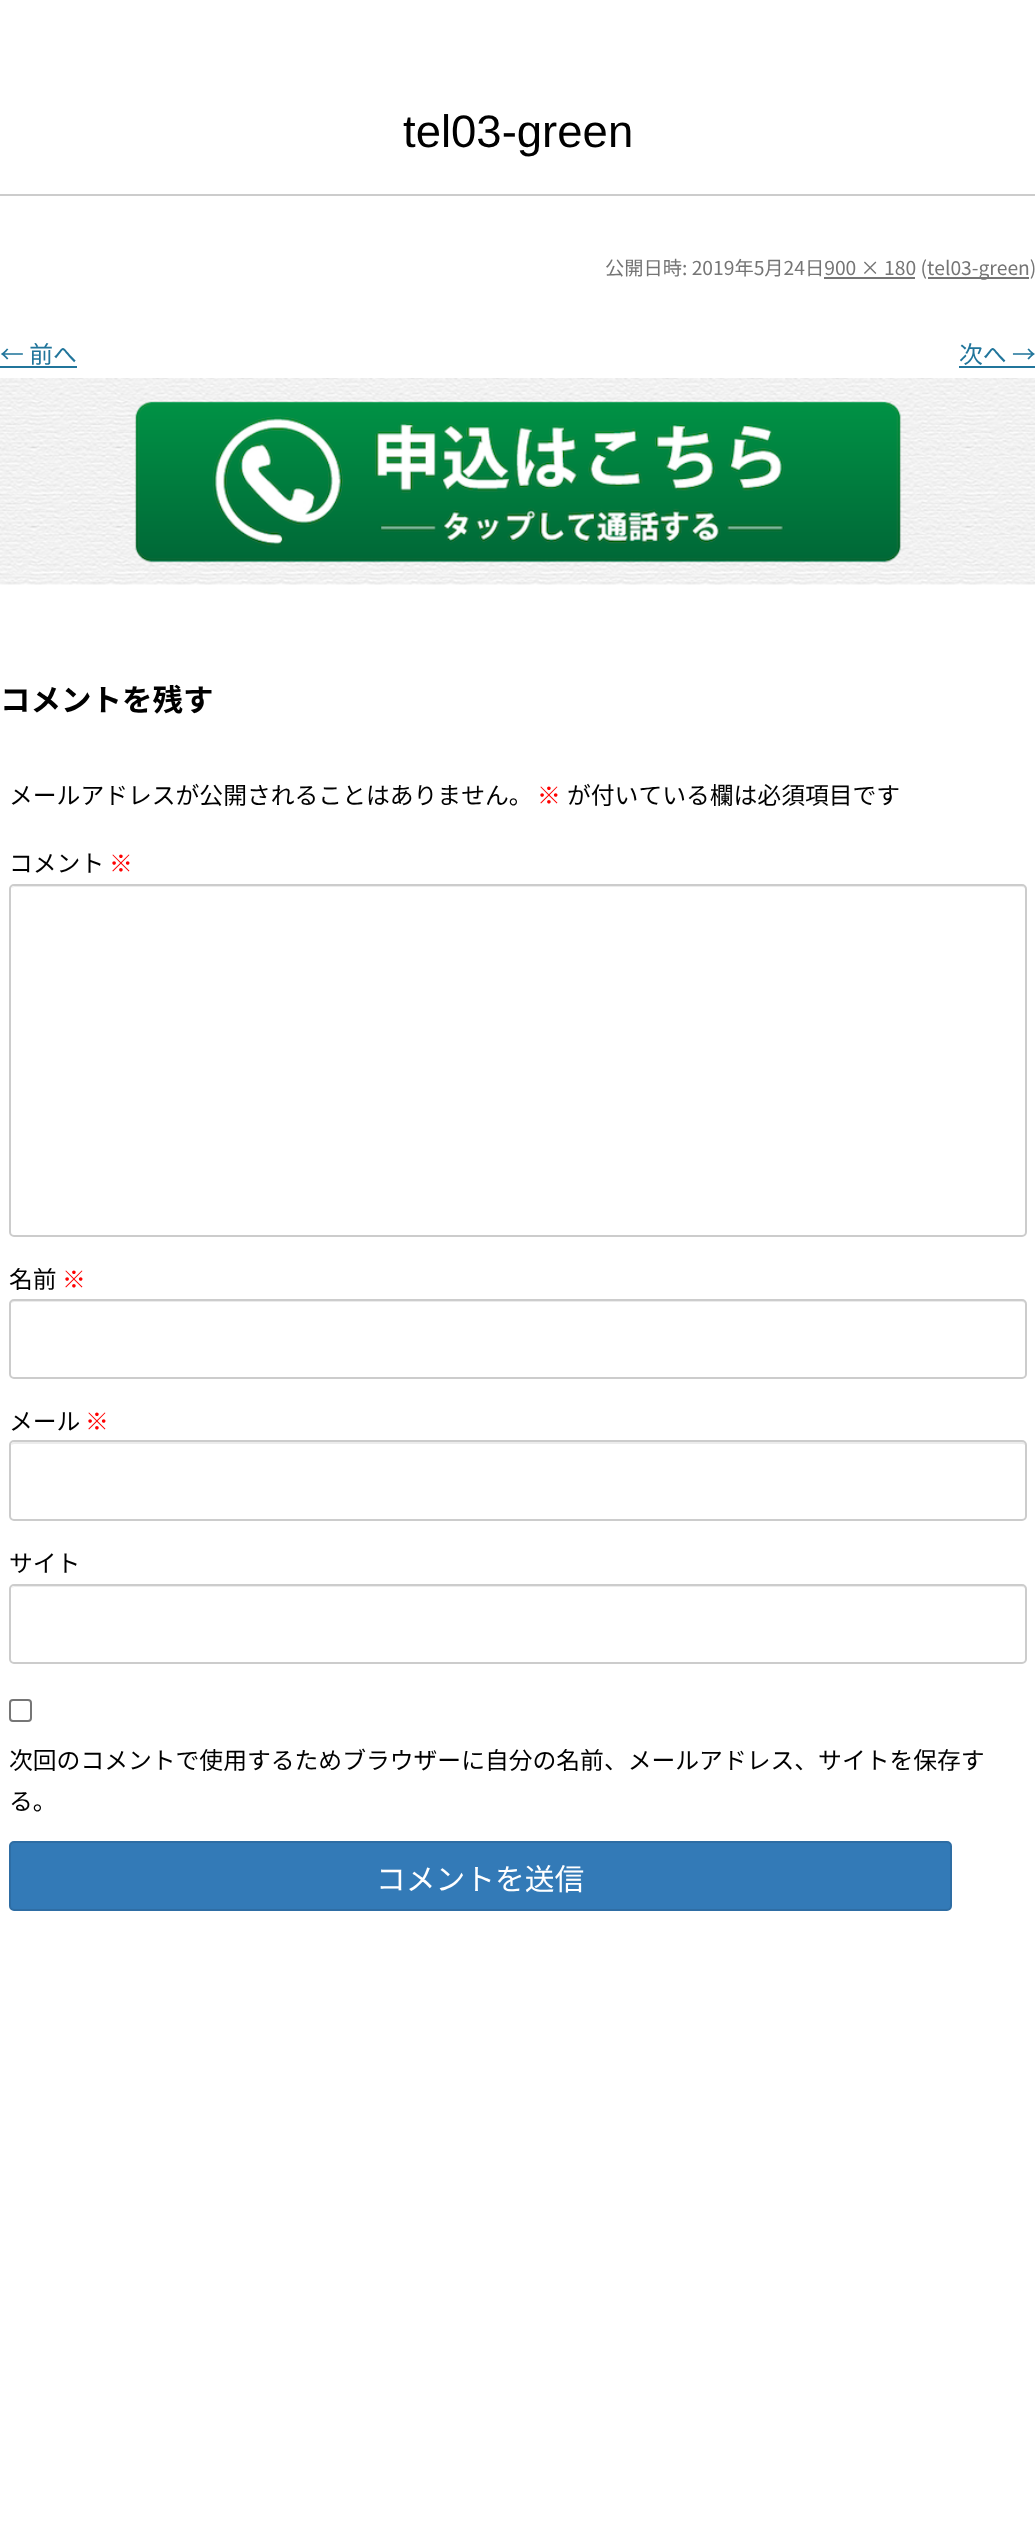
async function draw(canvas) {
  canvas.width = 1035;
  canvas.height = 2532;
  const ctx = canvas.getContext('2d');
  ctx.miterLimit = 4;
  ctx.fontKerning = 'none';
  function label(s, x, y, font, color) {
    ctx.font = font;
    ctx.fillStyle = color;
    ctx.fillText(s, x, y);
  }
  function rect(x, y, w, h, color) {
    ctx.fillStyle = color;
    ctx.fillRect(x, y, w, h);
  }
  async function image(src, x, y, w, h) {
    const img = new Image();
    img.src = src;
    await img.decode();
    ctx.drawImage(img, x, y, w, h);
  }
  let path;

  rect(0, 0, 1035, 2532, '#fff');
  rect(0, 194, 1035, 2, '#ccc');
  label('tel03-green', 403, 147, '45.5px Liberation Sans', '#000');
  label('公開日時: 2019年5月24日900 × 180 (', 605, 275, '19.25px Noto Sans JP', '#757575');
  rect(928, 277, 101, 2, '#757575');
  label('tel03-green)', 927, 275, '19.25px Noto Sans JP', '#757575');
  rect(824, 277, 91, 2, '#757575');
  label('← 前へ', 0, 363, '23.8px Noto Sans JP', '#21759b');
  rect(0, 366, 77, 2, '#21759b');
  label('次へ →', 959, 363, '23.8px Noto Sans JP', '#21759b');
  rect(959, 366, 76, 2, '#21759b');
  await image('assets/img1.png', 0, 378, 1035, 207);
  label('コメントを残す', 0, 711, 'bold 30.5px Noto Sans JP', '#000');
  label('メールアドレスが公開されることはありません。', 9, 804, '23.8px Noto Sans JP', '#000');
  label('※', 537, 804, '23.8px Noto Sans JP', '#f00');
  label('が付いている欄は必須項目です', 567, 804, '23.8px Noto Sans JP', '#000');
  label('コメント', 9, 872, '23.8px Noto Sans JP', '#000');
  label('※', 109, 872, '23.8px Noto Sans JP', '#f00');
  ctx.fillStyle = '#ececec';
  path = new Path2D('M14 887H1022C1024 887 1026 889 1026 891V890C1026 888 1024 886 1022 886H15C14 886 12 887 12 888Z');
  ctx.fill(path);
  ctx.beginPath();
  ctx.roundRect(10, 885, 1016, 351, 4);
  ctx.strokeStyle = '#ccc';
  ctx.lineWidth = 2;
  ctx.stroke();
  label('名前', 9, 1288, '23.8px Noto Sans JP', '#000');
  label('※', 62, 1288, '23.8px Noto Sans JP', '#f00');
  ctx.fillStyle = '#ececec';
  path = new Path2D('M14 1302H1022C1024 1302 1026 1304 1026 1306V1304C1026 1302 1024 1300 1022 1300H15C13 1300 11 1302 11 1303Z');
  ctx.fill(path);
  ctx.beginPath();
  ctx.roundRect(10, 1300, 1016, 78, 4);
  ctx.stroke();
  label('メール', 9, 1430, '23.8px Noto Sans JP', '#000');
  label('※', 85, 1430, '23.8px Noto Sans JP', '#f00');
  ctx.fillStyle = '#ececec';
  path = new Path2D('M14 1444H1022C1024 1444 1026 1445 1026 1447V1446C1026 1444 1024 1442 1022 1442H15C13 1442 12 1443 11 1445Z');
  ctx.fill(path);
  ctx.beginPath();
  ctx.roundRect(10, 1441, 1016, 79, 4);
  ctx.stroke();
  label('サイト', 9, 1572, '23.8px Noto Sans JP', '#000');
  ctx.fillStyle = '#ececec';
  path = new Path2D('M14 1587H1022C1024 1587 1026 1589 1026 1591V1590C1026 1588 1024 1586 1022 1586H15C14 1586 12 1587 12 1588Z');
  ctx.fill(path);
  ctx.beginPath();
  ctx.roundRect(10, 1585, 1016, 78, 4);
  ctx.stroke();
  ctx.beginPath();
  ctx.roundRect(10, 1700, 21, 21, 3);
  ctx.strokeStyle = '#767676';
  ctx.stroke();
  label('次回のコメントで使用するためブラウザーに自分の名前、メールアドレス、サイトを保存す', 9, 1769, '23.8px Noto Sans JP', '#000');
  label('る。', 9, 1810, '23.8px Noto Sans JP', '#000');
  ctx.fillStyle = '#337ab7';
  ctx.beginPath();
  ctx.roundRect(10, 1842, 941, 68, 4);
  ctx.fill();
  ctx.strokeStyle = '#2e6da4';
  ctx.stroke();
  label('コメントを送信', 376, 1890, '29.75px Noto Sans JP', '#fff');
}

draw(document.querySelector('canvas'));
